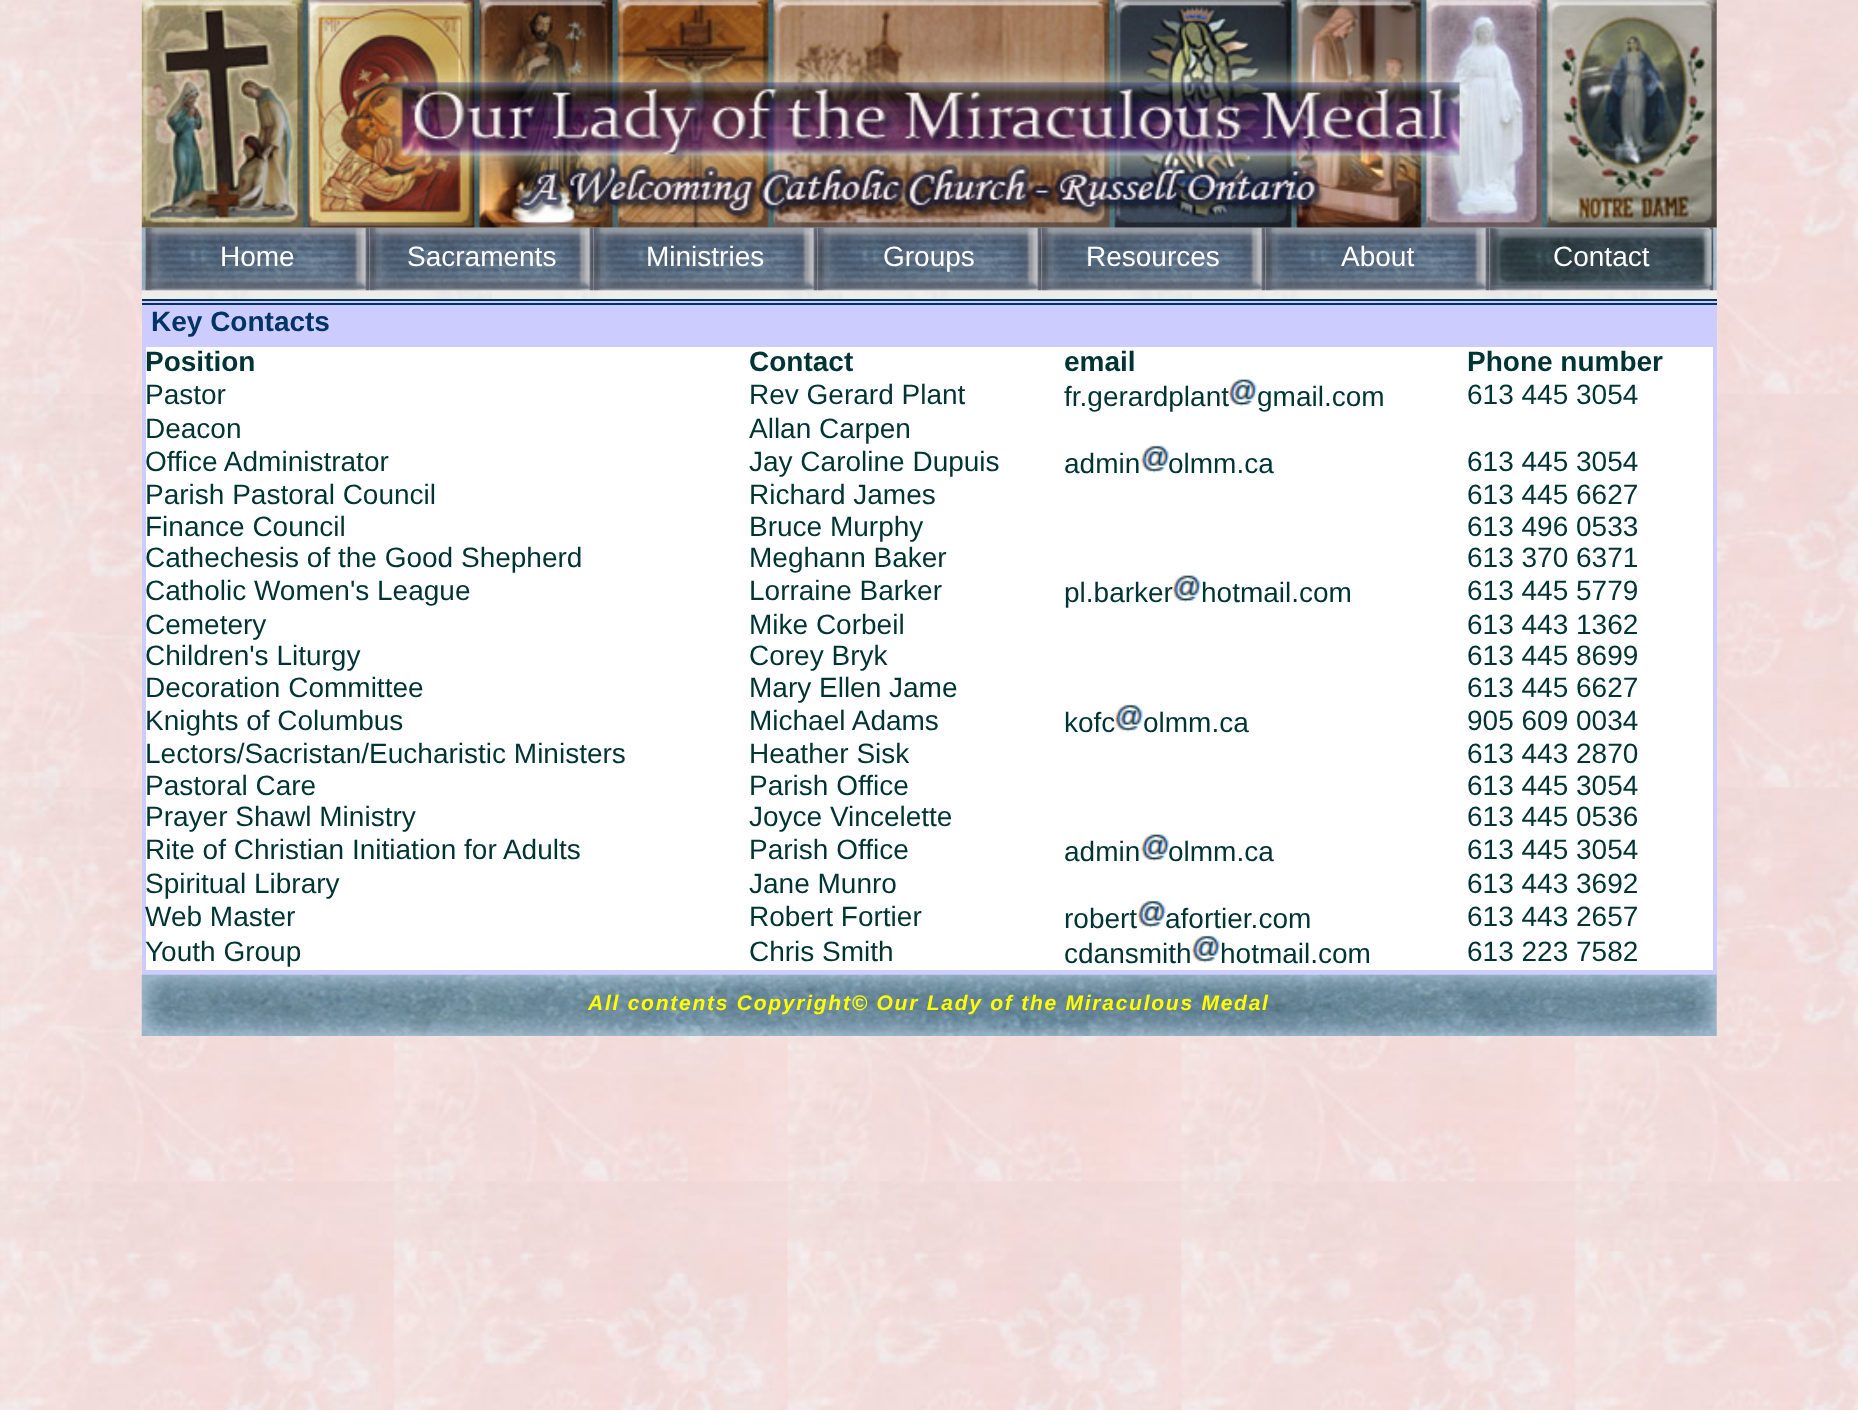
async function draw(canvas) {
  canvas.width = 1858;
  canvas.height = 1410;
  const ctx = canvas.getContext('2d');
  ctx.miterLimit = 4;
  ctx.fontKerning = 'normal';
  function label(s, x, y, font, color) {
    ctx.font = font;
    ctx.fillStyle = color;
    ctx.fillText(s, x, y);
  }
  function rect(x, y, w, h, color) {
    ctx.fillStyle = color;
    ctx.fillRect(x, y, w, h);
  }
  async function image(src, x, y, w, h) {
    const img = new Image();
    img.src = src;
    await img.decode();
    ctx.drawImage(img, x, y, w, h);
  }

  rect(0, 0, 1858, 1410, '#fff');
  await image('assets/img1.png', 0, 0, 1858, 1410);
  await image('assets/img2.png', 141, 0, 1576, 291);
  await image('assets/img4.png', 141, 227, 1576, 64);
  await image('assets/img5.png', 145, 227, 225, 64);
  await image('assets/img6.png', 369, 227, 225, 64);
  await image('assets/img7.png', 593, 227, 225, 64);
  await image('assets/img8.png', 817, 227, 225, 64);
  await image('assets/img9.png', 1041, 227, 225, 64);
  await image('assets/img10.png', 1265, 227, 225, 64);
  await image('assets/img11.png', 1489, 227, 225, 64);
  await image('assets/img3.png', 141, 0, 1576, 228);
  label('Home', 220, 266, '28px Liberation Sans', '#fff');
  label('Sacraments', 407, 266, '28px Liberation Sans', '#fff');
  label('Ministries', 646, 266, '28px Liberation Sans', '#fff');
  label('Groups', 883, 266, '28px Liberation Sans', '#fff');
  label('Resources', 1086, 266, '28px Liberation Sans', '#fff');
  label('About', 1341, 266, '28px Liberation Sans', '#fff');
  await image('assets/img12.png', 1491, 229, 221, 57);
  label('Contact', 1553, 266, '28px Liberation Sans', '#fff');
  await image('assets/img13.png', 141, 290, 1576, 685);
  rect(142, 301, 1575, 46, '#ccf');
  rect(142, 299, 1575, 2, '#036');
  rect(142, 303, 1575, 2, '#036');
  label('Key Contacts', 151, 331, 'bold 28px Liberation Sans', '#036');
  rect(146, 347, 1567, 623, '#fff');
  rect(1713, 343, 4, 632, '#ccf');
  rect(142, 343, 4, 632, '#ccf');
  rect(142, 970, 1575, 5, '#ccf');
  label('Position', 145, 371, 'bold 28px Liberation Sans', '#033');
  label('Contact', 749, 371, 'bold 28px Liberation Sans', '#033');
  label('email', 1064, 371, 'bold 28px Liberation Sans', '#033');
  label('Phone number', 1467, 371, 'bold 28px Liberation Sans', '#033');
  label('Pastor', 145, 404, '28px Liberation Sans', '#033');
  label('Rev Gerard Plant', 749, 404, '28px Liberation Sans', '#033');
  label('fr.gerardplant', 1064, 406, '28px Liberation Sans', '#033');
  await image('assets/img14.png', 1228, 379, 29, 27);
  label('gmail.com', 1257, 406, '28px Liberation Sans', '#033');
  label('613 445 3054', 1467, 404, '28px Liberation Sans', '#033');
  label('Deacon', 145, 438, '28px Liberation Sans', '#033');
  label('Allan Carpen', 749, 438, '28px Liberation Sans', '#033');
  label('Office Administrator', 145, 471, '28px Liberation Sans', '#033');
  label('Jay Caroline Dupuis', 749, 471, '28px Liberation Sans', '#033');
  label('admin', 1064, 473, '28px Liberation Sans', '#033');
  await image('assets/img15.png', 1141, 445, 28, 28);
  label('olmm.ca', 1168, 473, '28px Liberation Sans', '#033');
  label('613 445 3054', 1467, 471, '28px Liberation Sans', '#033');
  label('Parish Pastoral Council', 145, 504, '28px Liberation Sans', '#033');
  label('Richard James', 749, 504, '28px Liberation Sans', '#033');
  label('613 445 6627', 1467, 504, '28px Liberation Sans', '#033');
  label('Finance Council', 145, 536, '28px Liberation Sans', '#033');
  label('Bruce Murphy', 749, 536, '28px Liberation Sans', '#033');
  label('613 496 0533', 1467, 536, '28px Liberation Sans', '#033');
  label('Cathechesis of the Good Shepherd', 145, 567, '28px Liberation Sans', '#033');
  label('Meghann Baker', 749, 567, '28px Liberation Sans', '#033');
  label('613 370 6371', 1467, 567, '28px Liberation Sans', '#033');
  label('Catholic Women\'s League', 145, 600, '28px Liberation Sans', '#033');
  label('Lorraine Barker', 749, 600, '28px Liberation Sans', '#033');
  label('pl.barker', 1064, 602, '28px Liberation Sans', '#033');
  await image('assets/img16.png', 1172, 575, 29, 27);
  label('hotmail.com', 1201, 602, '28px Liberation Sans', '#033');
  label('613 445 5779', 1467, 600, '28px Liberation Sans', '#033');
  label('Cemetery', 145, 634, '28px Liberation Sans', '#033');
  label('Mike Corbeil', 749, 634, '28px Liberation Sans', '#033');
  label('613 443 1362', 1467, 634, '28px Liberation Sans', '#033');
  label('Children\'s Liturgy', 145, 665, '28px Liberation Sans', '#033');
  label('Corey Bryk', 749, 665, '28px Liberation Sans', '#033');
  label('613 445 8699', 1467, 665, '28px Liberation Sans', '#033');
  label('Decoration Committee', 145, 697, '28px Liberation Sans', '#033');
  label('Mary Ellen Jame', 749, 697, '28px Liberation Sans', '#033');
  label('613 445 6627', 1467, 697, '28px Liberation Sans', '#033');
  label('Knights of Columbus', 145, 730, '28px Liberation Sans', '#033');
  label('Michael Adams', 749, 730, '28px Liberation Sans', '#033');
  label('kofc', 1064, 732, '28px Liberation Sans', '#033');
  await image('assets/img17.png', 1114, 704, 29, 28);
  label('olmm.ca', 1143, 732, '28px Liberation Sans', '#033');
  label('905 609 0034', 1467, 730, '28px Liberation Sans', '#033');
  label('Lectors/Sacristan/Eucharistic Ministers', 145, 763, '28px Liberation Sans', '#033');
  label('Heather Sisk', 749, 763, '28px Liberation Sans', '#033');
  label('613 443 2870', 1467, 763, '28px Liberation Sans', '#033');
  label('Pastoral Care', 145, 795, '28px Liberation Sans', '#033');
  label('Parish Office', 749, 795, '28px Liberation Sans', '#033');
  label('613 445 3054', 1467, 795, '28px Liberation Sans', '#033');
  label('Prayer Shawl Ministry', 145, 826, '28px Liberation Sans', '#033');
  label('Joyce Vincelette', 749, 826, '28px Liberation Sans', '#033');
  label('613 445 0536', 1467, 826, '28px Liberation Sans', '#033');
  label('Rite of Christian Initiation for Adults', 145, 859, '28px Liberation Sans', '#033');
  label('Parish Office', 749, 859, '28px Liberation Sans', '#033');
  label('admin', 1064, 861, '28px Liberation Sans', '#033');
  await image('assets/img18.png', 1141, 834, 28, 27);
  label('olmm.ca', 1168, 861, '28px Liberation Sans', '#033');
  label('613 445 3054', 1467, 859, '28px Liberation Sans', '#033');
  label('Spiritual Library', 145, 893, '28px Liberation Sans', '#033');
  label('Jane Munro', 749, 893, '28px Liberation Sans', '#033');
  label('613 443 3692', 1467, 893, '28px Liberation Sans', '#033');
  label('Web Master', 145, 926, '28px Liberation Sans', '#033');
  label('Robert Fortier', 749, 926, '28px Liberation Sans', '#033');
  label('robert', 1064, 928, '28px Liberation Sans', '#033');
  await image('assets/img19.png', 1137, 900, 29, 28);
  label('afortier.com', 1165, 928, '28px Liberation Sans', '#033');
  label('613 443 2657', 1467, 926, '28px Liberation Sans', '#033');
  label('Youth Group', 145, 961, '28px Liberation Sans', '#033');
  label('Chris Smith', 749, 961, '28px Liberation Sans', '#033');
  label('cdansmith', 1064, 963, '28px Liberation Sans', '#033');
  await image('assets/img20.png', 1191, 935, 29, 28);
  label('hotmail.com', 1220, 963, '28px Liberation Sans', '#033');
  label('613 223 7582', 1467, 961, '28px Liberation Sans', '#033');
  await image('assets/img21.png', 141, 974, 1576, 62);
  ctx.letterSpacing = '1.75px';
  label('All contents Copyright© Our Lady of the Miraculous Medal', 588, 1010, 'italic bold 21px Liberation Sans', '#ff0');
}

draw(document.querySelector('canvas'));
